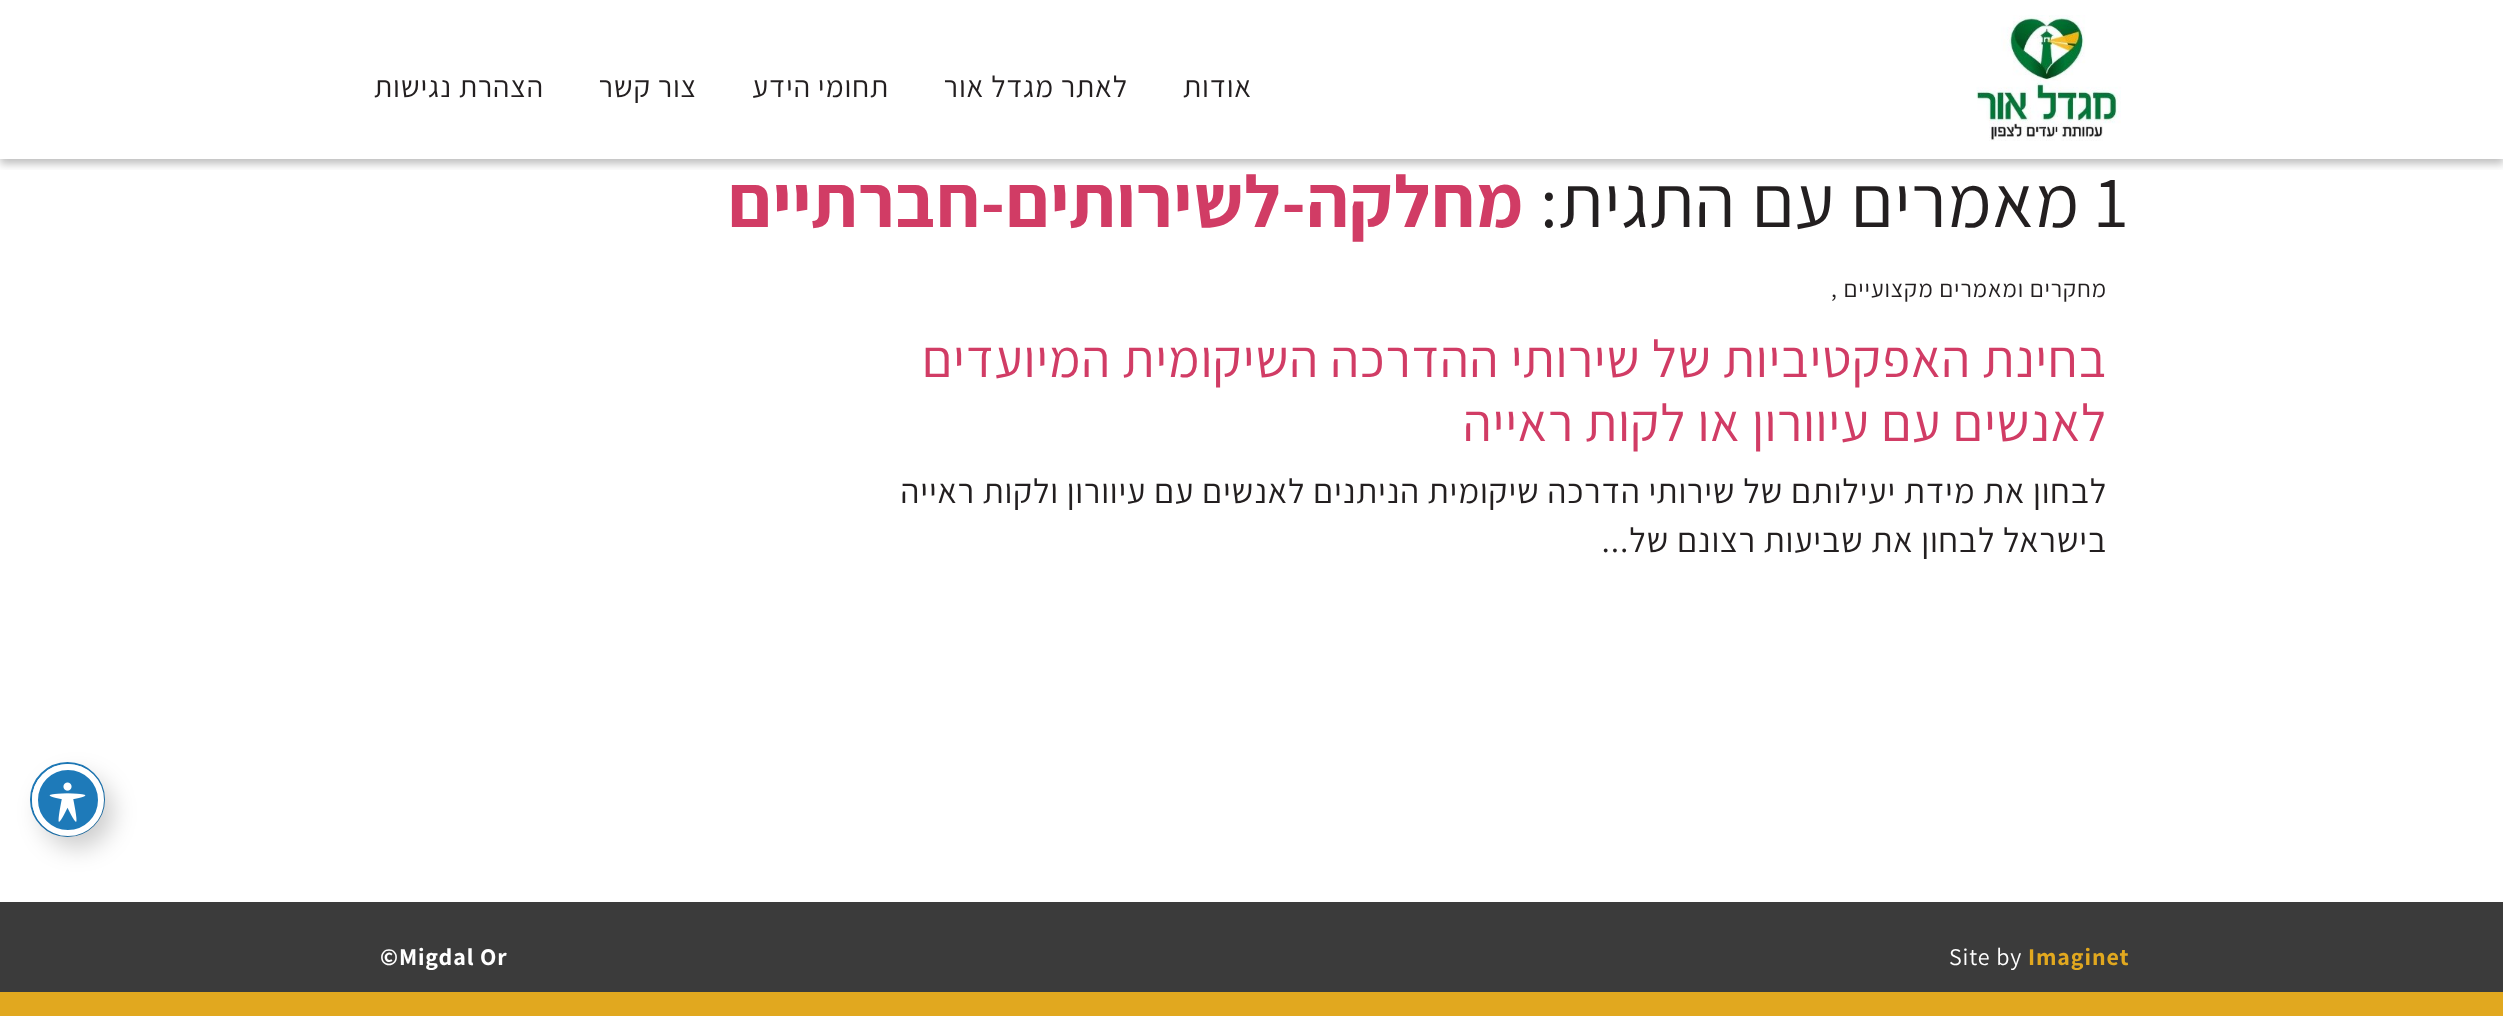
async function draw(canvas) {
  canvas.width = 2503;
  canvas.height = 1016;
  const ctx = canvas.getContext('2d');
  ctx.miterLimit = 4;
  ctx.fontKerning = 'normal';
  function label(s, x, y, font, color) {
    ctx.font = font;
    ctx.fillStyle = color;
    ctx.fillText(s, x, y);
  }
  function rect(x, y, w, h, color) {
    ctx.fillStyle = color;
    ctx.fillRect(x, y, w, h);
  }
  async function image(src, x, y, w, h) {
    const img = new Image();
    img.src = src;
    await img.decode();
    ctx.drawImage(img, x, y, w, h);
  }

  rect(0, 0, 2503, 1016, '#fff');
  ctx.save();
  ctx.beginPath();
  ctx.rect(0, 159, 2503, 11);
  ctx.clip();
  ctx.fillStyle = '#00000040';
  ctx.filter = 'blur(4.5px)';
  ctx.beginPath();
  ctx.rect(0, 5, 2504, 159);
  ctx.fill();
  ctx.filter = 'none';
  ctx.restore();
  await image('assets/img1.png', 1976, 15, 145, 126);
  ctx.letterSpacing = '0.9px';
  ctx.direction = 'rtl';
  label('אודות', 1252, 97, '30px Assistant', '#231f20');
  label('לאתר מגדל אור', 1128, 97, '30px Assistant', '#231f20');
  label('תחומי הידע', 889, 97, '30px Assistant', '#231f20');
  label('צור קשר', 697, 97, '30px Assistant', '#231f20');
  label('הצהרת נגישות', 544, 97, '30px Assistant', '#231f20');
  ctx.direction = 'ltr';
  label('1', 2095, 227, '73.5px Assistant', '#231f20');
  ctx.direction = 'rtl';
  label('מאמרים עם התגית:', 2080, 227, '73.5px Assistant', '#231f20');
  label('מחלקה-לשירותים-חברתיים', 1524, 227, 'bold 73.5px Assistant', '#d13c65');
  label('מחקרים ומאמרים מקצועיים ,', 2107, 297, '24px Assistant', '#231f20');
  label('בחינת האפקטיביות של שירותי ההדרכה השיקומית המיועדים', 2107, 377, '52.5px Assistant', '#d13c65');
  label('לאנשים עם עיוורון או לקות ראייה', 2107, 441, '52.5px Assistant', '#d13c65');
  label('לבחון את מידת יעילותם של שירותי הדרכה שיקומית הניתנים לאנשים עם עיוורון ולקות ראייה', 2107, 503, '34.5px Assistant', '#231f20');
  label('בישראל לבחון את שביעות רצונם של...', 2107, 552, '34.5px Assistant', '#231f20');
  rect(0, 902, 2503, 90, '#3b3b3b');
  rect(0, 992, 2503, 24, '#e1a81f');
  ctx.direction = 'ltr';
  label('Imaginet', 2028, 965, 'bold 24px Assistant', '#e1a81f');
  label('Site by', 1949, 965, '24px Assistant', '#fff');
  label('©Migdal Or', 380, 965, 'bold 24px Assistant', '#fff');
  ctx.beginPath();
  ctx.arc(67.5, 799.5, 36.5, 0, 2 * Math.PI);
  ctx.strokeStyle = '#1e7ab9';
  ctx.lineWidth = 2;
  ctx.stroke();
  ctx.fillStyle = '#00000033';
  ctx.filter = 'blur(12px)';
  ctx.beginPath();
  ctx.roundRect(41, 776, 72, 72, 36);
  ctx.fill();
  ctx.filter = 'none';
  ctx.fillStyle = '#1e7ab9';
  ctx.beginPath();
  ctx.arc(68, 800, 33, 0, 2 * Math.PI);
  ctx.fill();
  ctx.strokeStyle = '#fff';
  ctx.lineWidth = 6;
  ctx.stroke();
  await image('assets/img2.png', 49, 782, 37, 40);
}

draw(document.querySelector('canvas'));
